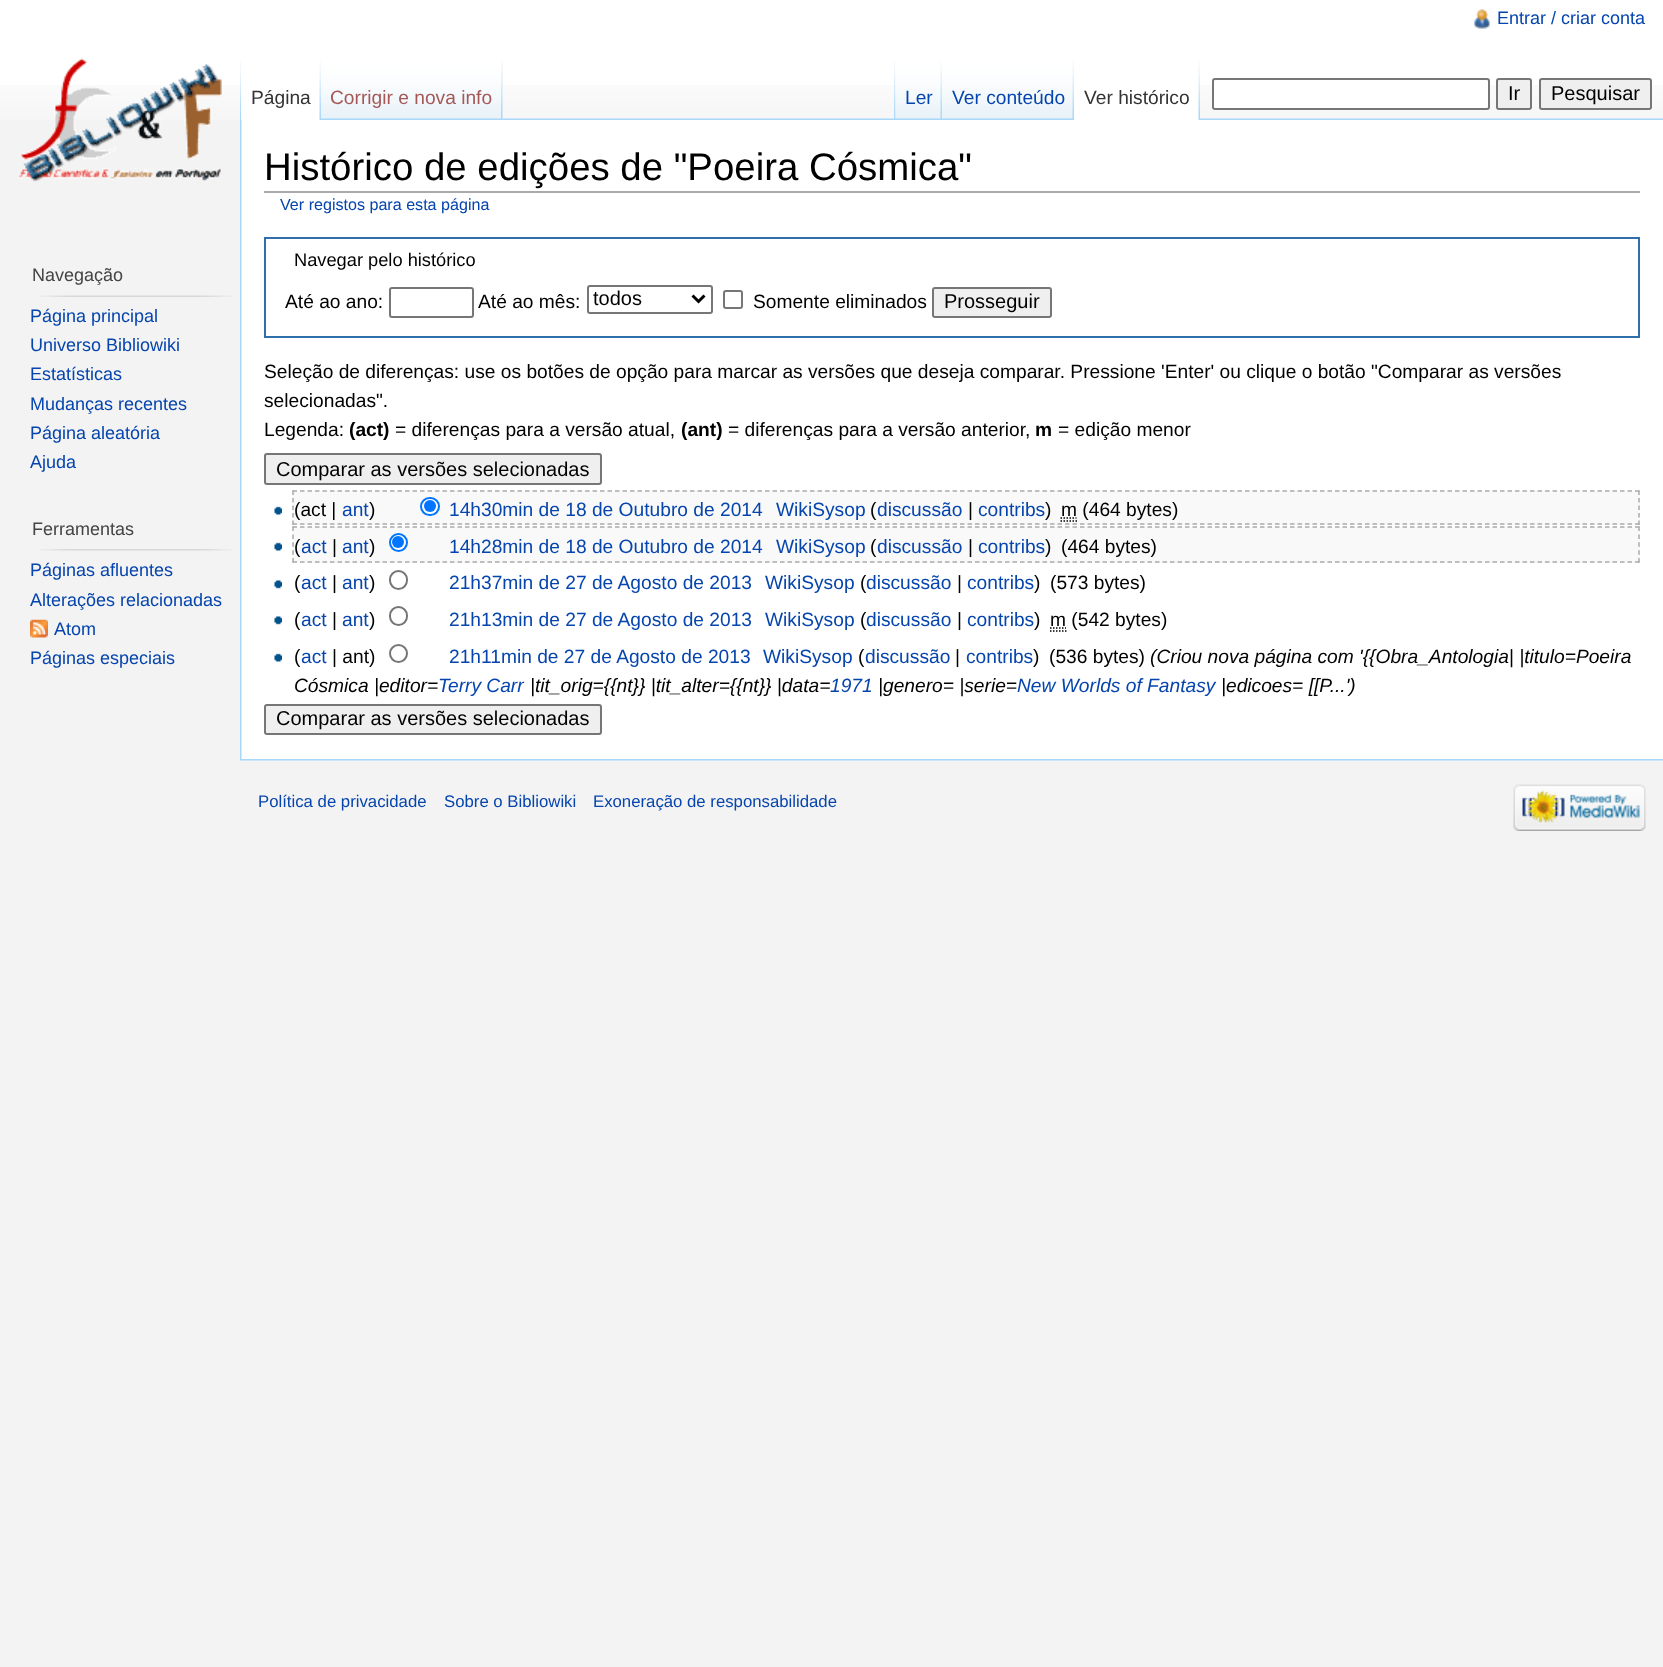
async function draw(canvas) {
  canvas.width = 1663;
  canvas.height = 1667;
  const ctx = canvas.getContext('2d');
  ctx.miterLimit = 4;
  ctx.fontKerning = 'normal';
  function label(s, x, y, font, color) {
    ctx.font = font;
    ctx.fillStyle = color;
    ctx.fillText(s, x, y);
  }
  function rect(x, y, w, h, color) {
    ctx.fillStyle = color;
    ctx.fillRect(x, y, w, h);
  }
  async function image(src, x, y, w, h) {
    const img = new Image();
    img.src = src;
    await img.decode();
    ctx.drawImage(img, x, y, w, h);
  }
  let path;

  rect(0, 0, 1663, 1667, '#f3f3f3');
  rect(0, 0, 1663, 85, '#fff');
  await image('assets/img1.png', 0, 85, 1663, 35);
  await image('assets/img2.png', 1474, 9, 16, 20);
  label('Entrar / criar conta', 1497, 24, '18px Liberation Sans', '#0645ad');
  await image('assets/img11.png', 240, 118, 1423, 2);
  await image('assets/img3.png', 240, 60, 1, 59);
  rect(241, 85, 80, 35, '#fff');
  await image('assets/img4.png', 319, 61, 2, 59);
  label('Página', 251, 104, '19.2px Liberation Sans', '#333');
  rect(502, 60, 1, 60, '#f3f3f3');
  await image('assets/img5.png', 321, 60, 182, 60);
  await image('assets/img6.png', 501, 61, 2, 59);
  label('Corrigir e nova info', 330, 104, '19.2px Liberation Sans', '#a55858');
  await image('assets/img7.png', 894, 60, 2, 59);
  await image('assets/img8.png', 895, 60, 47, 60);
  await image('assets/img9.png', 940, 61, 2, 58);
  label('Ler', 905, 104, '19.2px Liberation Sans', '#0645ad');
  await image('assets/img10.png', 942, 60, 132, 60);
  await image('assets/img9.png', 1072, 61, 2, 58);
  label('Ver conteúdo', 952, 104, '19.2px Liberation Sans', '#0645ad');
  rect(1074, 85, 126, 35, '#fff');
  await image('assets/img4.png', 1198, 61, 2, 59);
  label('Ver histórico', 1084, 104, '19.2px Liberation Sans', '#333');
  ctx.fillStyle = '#fff';
  ctx.beginPath();
  ctx.roundRect(1213, 79, 276, 30, 2);
  ctx.fill();
  ctx.strokeStyle = '#767676';
  ctx.lineWidth = 2;
  ctx.stroke();
  ctx.fillStyle = '#efefef';
  ctx.beginPath();
  ctx.roundRect(1497, 79, 34, 30, 2);
  ctx.fill();
  ctx.stroke();
  label('Ir', 1508, 100, '20px Liberation Sans', '#000');
  ctx.fillStyle = '#efefef';
  ctx.beginPath();
  ctx.roundRect(1540, 79, 111, 30, 2);
  ctx.fill();
  ctx.stroke();
  label('Pesquisar', 1551, 100, '20px Liberation Sans', '#000');
  await image('assets/img12.png', 19, 58, 203, 124);
  label('Navegação', 32, 281, '18px Liberation Sans', '#444');
  await image('assets/img13.png', 40, 295, 192, 2);
  label('Página principal', 30, 322, '18px Liberation Sans', '#0645ad');
  label('Universo Bibliowiki', 30, 351, '18px Liberation Sans', '#0645ad');
  label('Estatísticas', 30, 380, '18px Liberation Sans', '#0645ad');
  label('Mudanças recentes', 30, 410, '18px Liberation Sans', '#0645ad');
  label('Página aleatória', 30, 439, '18px Liberation Sans', '#0645ad');
  label('Ajuda', 30, 468, '18px Liberation Sans', '#0645ad');
  label('Ferramentas', 32, 535, '18px Liberation Sans', '#444');
  await image('assets/img14.png', 40, 549, 192, 2);
  label('Páginas afluentes', 30, 576, '18px Liberation Sans', '#0645ad');
  label('Alterações relacionadas', 30, 606, '18px Liberation Sans', '#0645ad');
  await image('assets/img15.png', 30, 619, 18, 19);
  label('Atom', 54, 635, '18px Liberation Sans', '#0645ad');
  label('Páginas especiais', 30, 664, '18px Liberation Sans', '#0645ad');
  rect(241, 120, 1422, 639, '#fff');
  await image('assets/img16.png', 240, 120, 2, 639);
  rect(264, 191, 1376, 2, '#aaa');
  label('Histórico de edições de "Poeira Cósmica"', 264, 180, '38.4px Liberation Sans', '#000');
  label('Ver registos para esta página', 280, 210, '16.1px Liberation Sans', '#0645ad');
  ctx.strokeStyle = '#2f6fab';
  ctx.strokeRect(265, 238, 1374, 99);
  label('Navegar pelo histórico', 294, 266, '18.25px Liberation Sans', '#000');
  label('Até ao ano:', 285, 308, '19.2px Liberation Sans', '#000');
  ctx.beginPath();
  ctx.roundRect(390, 288, 83, 29, 2);
  ctx.strokeStyle = '#767676';
  ctx.stroke();
  label('Até ao mês:', 478, 308, '19.2px Liberation Sans', '#000');
  ctx.beginPath();
  ctx.roundRect(588, 286, 124, 27, 2);
  ctx.stroke();
  path = new Path2D('M692.5 295.5L698.5 301.5L704.5 295.5');
  ctx.strokeStyle = '#000';
  ctx.lineWidth = 3;
  ctx.stroke(path);
  label('todos', 593, 305, '20px Liberation Sans', '#000');
  ctx.beginPath();
  ctx.roundRect(724, 291, 18, 17, 2);
  ctx.strokeStyle = '#767676';
  ctx.lineWidth = 2;
  ctx.stroke();
  label('Somente eliminados', 753, 308, '19.2px Liberation Sans', '#000');
  ctx.fillStyle = '#efefef';
  ctx.beginPath();
  ctx.roundRect(933, 288, 118, 29, 2);
  ctx.fill();
  ctx.stroke();
  label('Prosseguir', 944, 308, '20px Liberation Sans', '#000');
  label('Seleção de diferenças: use os botões de opção para marcar as versões que deseja comparar. Pressione \'Enter\' ou clique o botão "Comparar as versões', 264, 378, '19.2px Liberation Sans', '#000');
  label('selecionadas".', 264, 407, '19.2px Liberation Sans', '#000');
  label('Legenda:', 264, 436, '19.2px Liberation Sans', '#000');
  label('(act)', 349, 436, 'bold 19.2px Liberation Sans', '#000');
  label('= diferenças para a versão atual,', 395, 436, '19.2px Liberation Sans', '#000');
  label('(ant)', 681, 436, 'bold 19.2px Liberation Sans', '#000');
  label('= diferenças para a versão anterior,', 728, 436, '19.2px Liberation Sans', '#000');
  label('m', 1035, 436, 'bold 19.2px Liberation Sans', '#000');
  label('= edição menor', 1058, 436, '19.2px Liberation Sans', '#000');
  ctx.fillStyle = '#efefef';
  ctx.beginPath();
  ctx.roundRect(265, 454, 336, 30, 2);
  ctx.fill();
  ctx.stroke();
  label('Comparar as versões selecionadas', 276, 476, '20px Liberation Sans', '#000');
  rect(293, 491, 1347, 34, '#f9f9f9');
  path = new Path2D('M292.5 491H1639.5');
  ctx.strokeStyle = '#aaa';
  ctx.lineWidth = 1.5;
  ctx.setLineDash([4.5, 3]);
  ctx.stroke(path);
  path = new Path2D('M1639 490.5V525');
  ctx.stroke(path);
  path = new Path2D('M292.5 524H1639.5');
  ctx.stroke(path);
  path = new Path2D('M293 490.5V525');
  ctx.stroke(path);
  await image('assets/img17.png', 274, 506, 8, 9);
  label('(act |', 294, 516, '19.2px Liberation Sans', '#000');
  label('ant', 342, 516, '19.2px Liberation Sans', '#0645ad');
  label(')', 369, 516, '19.2px Liberation Sans', '#000');
  ctx.fillStyle = '#fff';
  ctx.beginPath();
  ctx.roundRect(421, 498, 18, 17, 8.5);
  ctx.fill();
  ctx.strokeStyle = '#0075ff';
  ctx.lineWidth = 2;
  ctx.setLineDash([]);
  ctx.stroke();
  ctx.fillStyle = '#0075ff';
  ctx.beginPath();
  ctx.arc(430, 506, 6, 0, 2 * Math.PI);
  ctx.fill();
  label('14h30min de 18 de Outubro de 2014', 449, 516, '19.2px Liberation Sans', '#0645ad');
  label('WikiSysop', 776, 516, '19.2px Liberation Sans', '#0645ad');
  label('(', 870, 516, '19.2px Liberation Sans', '#000');
  label('discussão', 877, 516, '19.2px Liberation Sans', '#0645ad');
  label('|', 968, 516, '19.2px Liberation Sans', '#000');
  label('contribs', 978, 516, '19.2px Liberation Sans', '#0645ad');
  label(')', 1045, 516, '19.2px Liberation Sans', '#000');
  path = new Path2D('M1060.5 521H1077M1060.5 518H1076.5');
  ctx.strokeStyle = '#000';
  ctx.lineWidth = 1.5;
  ctx.setLineDash([1.5, 1.5]);
  ctx.stroke(path);
  label('m (464 bytes)', 1061, 516, '19.2px Liberation Sans', '#000');
  rect(293, 527, 1347, 36, '#f9f9f9');
  path = new Path2D('M292.5 527H1639.5');
  ctx.strokeStyle = '#aaa';
  ctx.setLineDash([4.5, 3]);
  ctx.stroke(path);
  path = new Path2D('M1639 526.5V562.5');
  ctx.setLineDash([4.5, 3.38]);
  ctx.stroke(path);
  path = new Path2D('M292.5 562H1639.5');
  ctx.setLineDash([4.5, 3]);
  ctx.stroke(path);
  path = new Path2D('M293 526.5V562.5');
  ctx.setLineDash([4.5, 3.38]);
  ctx.stroke(path);
  await image('assets/img17.png', 274, 542, 8, 9);
  label('(', 294, 553, '19.2px Liberation Sans', '#000');
  label('act', 301, 553, '19.2px Liberation Sans', '#0645ad');
  label('|', 332, 553, '19.2px Liberation Sans', '#000');
  label('ant', 342, 553, '19.2px Liberation Sans', '#0645ad');
  label(')', 369, 553, '19.2px Liberation Sans', '#000');
  ctx.fillStyle = '#fff';
  ctx.beginPath();
  ctx.arc(398.5, 542.5, 8.5, 0, 2 * Math.PI);
  ctx.fill();
  ctx.strokeStyle = '#0075ff';
  ctx.lineWidth = 2;
  ctx.setLineDash([]);
  ctx.stroke();
  ctx.fillStyle = '#0075ff';
  ctx.beginPath();
  ctx.arc(398, 542, 6, 0, 2 * Math.PI);
  ctx.fill();
  label('14h28min de 18 de Outubro de 2014', 449, 553, '19.2px Liberation Sans', '#0645ad');
  label('WikiSysop', 776, 553, '19.2px Liberation Sans', '#0645ad');
  label('(', 870, 553, '19.2px Liberation Sans', '#000');
  label('discussão', 877, 553, '19.2px Liberation Sans', '#0645ad');
  label('|', 968, 553, '19.2px Liberation Sans', '#000');
  label('contribs', 978, 553, '19.2px Liberation Sans', '#0645ad');
  label(')', 1045, 553, '19.2px Liberation Sans', '#000');
  label('(464 bytes)', 1061, 553, '19.2px Liberation Sans', '#000');
  await image('assets/img18.png', 274, 580, 8, 9);
  label('(', 294, 589, '19.2px Liberation Sans', '#000');
  label('act', 301, 589, '19.2px Liberation Sans', '#0645ad');
  label('|', 332, 589, '19.2px Liberation Sans', '#000');
  label('ant', 342, 589, '19.2px Liberation Sans', '#0645ad');
  label(')', 369, 589, '19.2px Liberation Sans', '#000');
  ctx.beginPath();
  ctx.roundRect(390, 571, 17, 18, 8.5);
  ctx.strokeStyle = '#767676';
  ctx.stroke();
  label('21h37min de 27 de Agosto de 2013', 449, 589, '19.2px Liberation Sans', '#0645ad');
  label('WikiSysop', 765, 589, '19.2px Liberation Sans', '#0645ad');
  label('(', 860, 589, '19.2px Liberation Sans', '#000');
  label('discussão', 866, 589, '19.2px Liberation Sans', '#0645ad');
  label('|', 957, 589, '19.2px Liberation Sans', '#000');
  label('contribs', 967, 589, '19.2px Liberation Sans', '#0645ad');
  label(')', 1034, 589, '19.2px Liberation Sans', '#000');
  label('(573 bytes)', 1050, 589, '19.2px Liberation Sans', '#000');
  await image('assets/img18.png', 274, 616, 8, 9);
  label('(', 294, 626, '19.2px Liberation Sans', '#000');
  label('act', 301, 626, '19.2px Liberation Sans', '#0645ad');
  label('|', 332, 626, '19.2px Liberation Sans', '#000');
  label('ant', 342, 626, '19.2px Liberation Sans', '#0645ad');
  label(')', 369, 626, '19.2px Liberation Sans', '#000');
  ctx.beginPath();
  ctx.roundRect(390, 607, 17, 18, 8.5);
  ctx.stroke();
  label('21h13min de 27 de Agosto de 2013', 449, 626, '19.2px Liberation Sans', '#0645ad');
  label('WikiSysop', 765, 626, '19.2px Liberation Sans', '#0645ad');
  label('(', 860, 626, '19.2px Liberation Sans', '#000');
  label('discussão', 866, 626, '19.2px Liberation Sans', '#0645ad');
  label('|', 957, 626, '19.2px Liberation Sans', '#000');
  label('contribs', 967, 626, '19.2px Liberation Sans', '#0645ad');
  label(')', 1034, 626, '19.2px Liberation Sans', '#000');
  path = new Path2D('M1050 631H1066.5M1050 628H1066');
  ctx.strokeStyle = '#000';
  ctx.lineWidth = 1.5;
  ctx.setLineDash([1.5, 1.5]);
  ctx.stroke(path);
  label('m (542 bytes)', 1050, 626, '19.2px Liberation Sans', '#000');
  await image('assets/img17.png', 274, 653, 8, 9);
  label('(', 294, 663, '19.2px Liberation Sans', '#000');
  label('act', 301, 663, '19.2px Liberation Sans', '#0645ad');
  label('| ant)', 332, 663, '19.2px Liberation Sans', '#000');
  ctx.beginPath();
  ctx.arc(398.5, 653.5, 8.5, 0, 2 * Math.PI);
  ctx.strokeStyle = '#767676';
  ctx.lineWidth = 2;
  ctx.setLineDash([]);
  ctx.stroke();
  label('21h11min de 27 de Agosto de 2013', 449, 663, '19.2px Liberation Sans', '#0645ad');
  label('WikiSysop', 763, 663, '19.2px Liberation Sans', '#0645ad');
  label('(', 858, 663, '19.2px Liberation Sans', '#000');
  label('discussão', 865, 663, '19.2px Liberation Sans', '#0645ad');
  label('|', 955, 663, '19.2px Liberation Sans', '#000');
  label('contribs', 966, 663, '19.2px Liberation Sans', '#0645ad');
  label(')', 1033, 663, '19.2px Liberation Sans', '#000');
  label('(536 bytes)', 1049, 663, '19.2px Liberation Sans', '#000');
  label('(Criou nova página com \'{{Obra_Antologia| |titulo=Poeira', 1150, 663, 'italic 19.2px Liberation Sans', '#000');
  label('Cósmica |editor=', 294, 692, 'italic 19.2px Liberation Sans', '#000');
  label('Terry Carr', 438, 692, 'italic 19.2px Liberation Sans', '#0645ad');
  label('|tit_orig={{nt}} |tit_alter={{nt}} |data=', 530, 692, 'italic 19.2px Liberation Sans', '#000');
  label('1971', 830, 692, 'italic 19.2px Liberation Sans', '#0645ad');
  label('|genero= |serie=', 878, 692, 'italic 19.2px Liberation Sans', '#000');
  label('New Worlds of Fantasy', 1017, 692, 'italic 19.2px Liberation Sans', '#0645ad');
  label('|edicoes= [[P...\')', 1221, 692, 'italic 19.2px Liberation Sans', '#000');
  ctx.fillStyle = '#efefef';
  ctx.beginPath();
  ctx.roundRect(265, 705, 336, 29, 2);
  ctx.fill();
  ctx.stroke();
  label('Comparar as versões selecionadas', 276, 725, '20px Liberation Sans', '#000');
  await image('assets/img19.png', 240, 759, 1423, 2);
  label('Política de privacidade', 258, 807, '16.75px Liberation Sans', '#0645ad');
  label('Sobre o Bibliowiki', 444, 807, '16.75px Liberation Sans', '#0645ad');
  label('Exoneração de responsabilidade', 593, 807, '16.75px Liberation Sans', '#0645ad');
  await image('assets/img20.png', 1513, 784, 133, 47);
}

draw(document.querySelector('canvas'));
